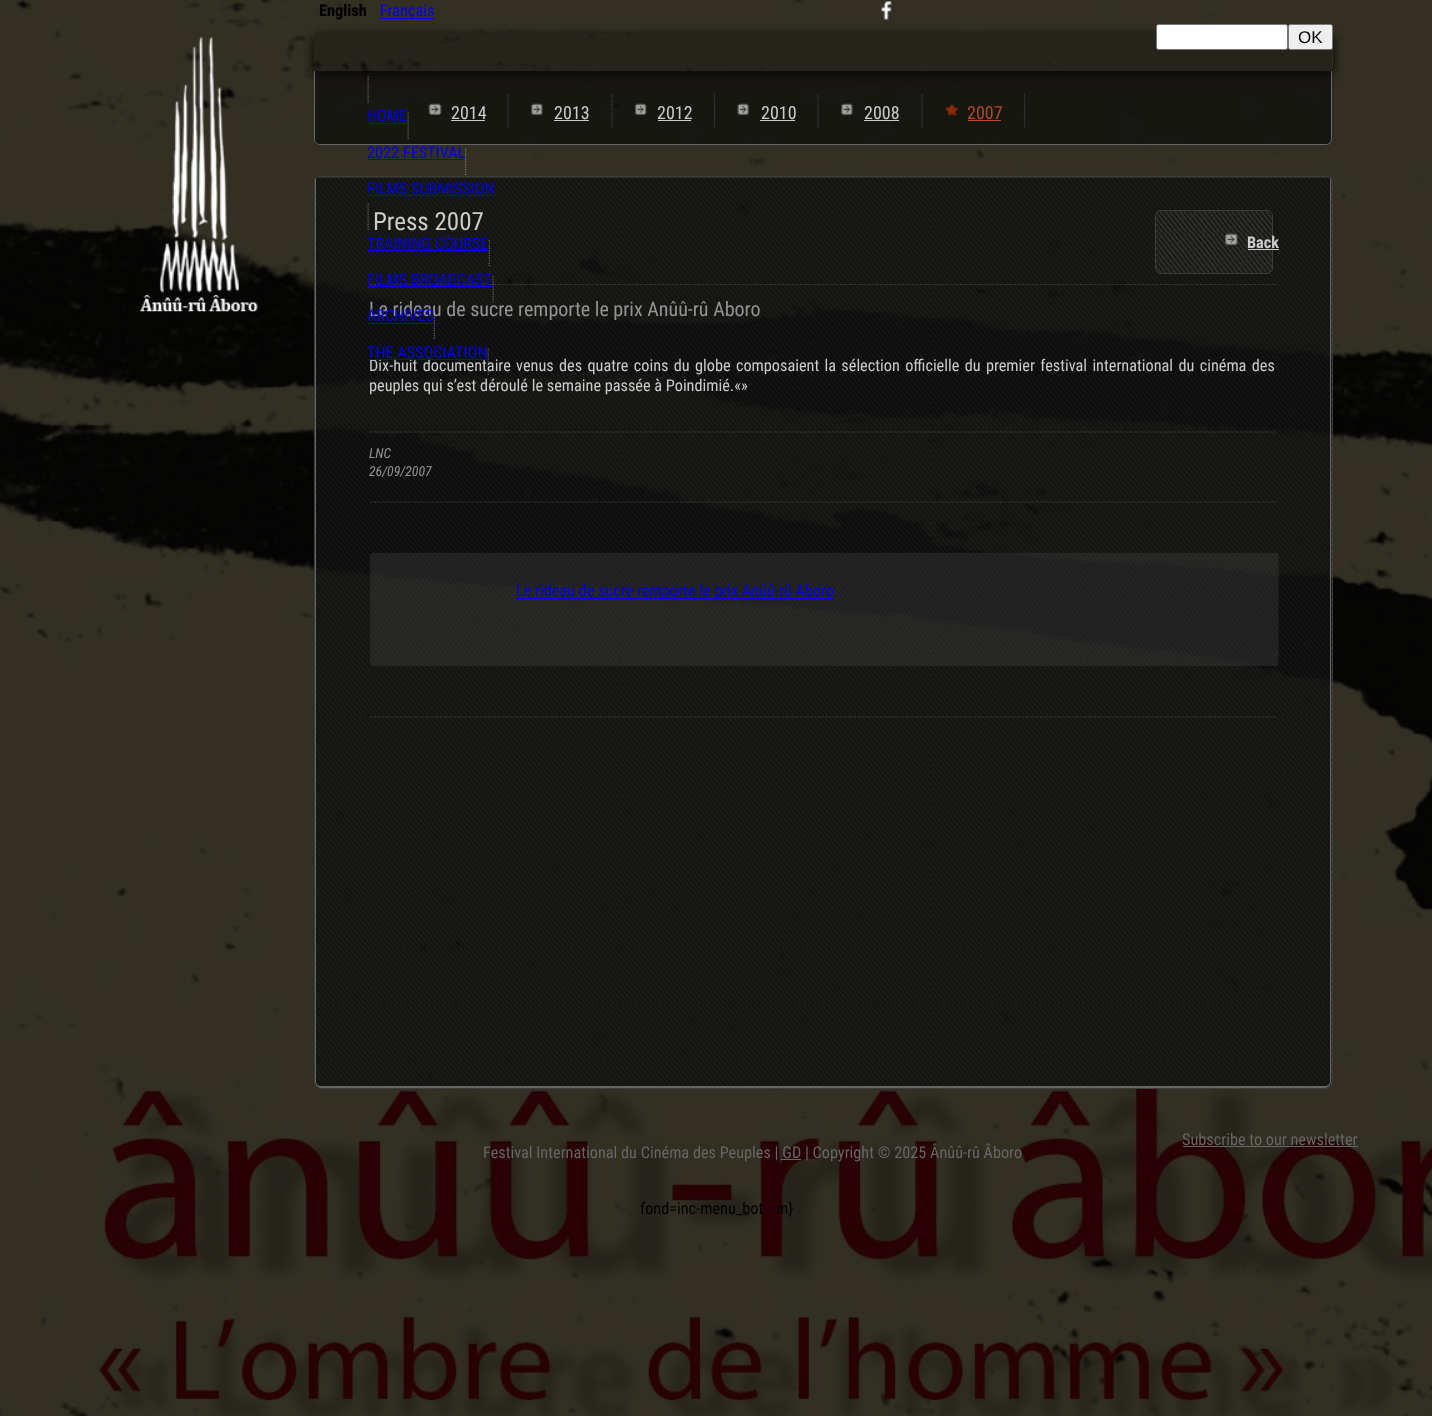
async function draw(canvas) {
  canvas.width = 1432;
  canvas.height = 1416;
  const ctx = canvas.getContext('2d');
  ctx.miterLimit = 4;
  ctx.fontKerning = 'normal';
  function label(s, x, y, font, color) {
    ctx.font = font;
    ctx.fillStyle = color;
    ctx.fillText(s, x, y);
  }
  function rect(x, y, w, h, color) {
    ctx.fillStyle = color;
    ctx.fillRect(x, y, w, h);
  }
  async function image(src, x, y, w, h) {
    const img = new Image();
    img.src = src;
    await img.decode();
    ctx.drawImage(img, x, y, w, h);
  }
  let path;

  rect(0, 0, 1432, 1416, '#000');
  await image('assets/img1.png', 0, 0, 1432, 1416);
  await image('assets/img2.png', 140, 37, 118, 275);
  ctx.save();
  path = new Path2D('M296 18H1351V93H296ZM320 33H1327C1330.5 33 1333 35.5 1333 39V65C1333 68.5 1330.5 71 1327 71H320C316.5 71 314 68.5 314 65V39C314 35.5 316.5 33 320 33Z');
  ctx.clip(path, 'evenodd');
  ctx.filter = 'blur(5.5px)';
  ctx.beginPath();
  ctx.roundRect(314, 36, 1019, 39, 6);
  ctx.fill();
  ctx.filter = 'none';
  ctx.restore();
  label('English', 319, 16, 'bold 16.25px Roboto Condensed', '#000');
  rect(380, 18, 54, 1, '#00e');
  label('Français', 380, 16, '16.25px Roboto Condensed', '#00e');
  await image('assets/img3.png', 881, 1, 11, 19);
  await image('assets/img4.png', 314, 33, 1018, 38);
  ctx.fillStyle = '#fff';
  ctx.beginPath();
  ctx.roundRect(1156.5, 24.5, 131, 25, 2);
  ctx.fill();
  ctx.strokeStyle = '#767676';
  ctx.stroke();
  ctx.fillStyle = '#efefef';
  ctx.beginPath();
  ctx.roundRect(1288.5, 24.5, 44, 25, 2);
  ctx.fill();
  ctx.stroke();
  label('OK', 1298, 43, '17px Liberation Sans', '#000');
  await image('assets/img13.png', 314, 71, 1019, 74);
  ctx.fillStyle = '#666';
  path = new Path2D('M314 71H1332V139C1332 142 1330 145 1326 145H320C317 145 314 142 314 139ZM315 71H1331V139C1331 142 1329 144 1326 144H320C317 144 315 142 315 139Z');
  ctx.fill(path, 'evenodd');
  await image('assets/img5.png', 367, 76, 2, 27);
  label('HOME', 367, 121, '16.25px Roboto Condensed', '#00e');
  await image('assets/img6.png', 407, 112, 2, 27);
  rect(368, 123, 40, 1, '#00e');
  label('2022 FESTIVAL', 367, 158, '16.25px Roboto Condensed', '#00e');
  rect(368, 159, 97, 1, '#00e');
  await image('assets/img7.png', 465, 148, 2, 27);
  await image('assets/img20.png', 314, 176, 1019, 913);
  ctx.beginPath();
  ctx.roundRect(314.5, 176.5, 1018, 912, 5.5);
  ctx.strokeStyle = '#3c3c3c';
  ctx.stroke();
  await image('assets/img21.png', 315, 177, 1016, 911);
  ctx.fillStyle = '#666';
  path = new Path2D('M315 178H1331V1081C1331 1085 1328 1088 1325 1088H321C318 1088 315 1085 315 1081ZM316 178H1330V1081C1330 1084 1328 1086 1325 1086H321C318 1086 316 1084 316 1081Z');
  ctx.fill(path, 'evenodd');
  label('FILMS SUBMISSION', 367, 194, '16.25px Roboto Condensed', '#00e');
  rect(368, 195, 127, 1, '#00e');
  await image('assets/img8.png', 367, 203, 2, 27);
  label('TRAINING COURSE', 367, 249, '16.25px Roboto Condensed', '#00e');
  await image('assets/img9.png', 488, 240, 2, 27);
  rect(368, 250, 121, 1, '#00e');
  path = new Path2D('M370 284.5H1276');
  ctx.strokeStyle = '#444';
  ctx.lineWidth = 1.2;
  ctx.setLineDash([1.25, 1.25]);
  ctx.stroke(path);
  label('FILMS BROADCAST', 367, 285, '16.25px Roboto Condensed', '#00e');
  label('Le rideau de sucre remporte le prix Anûû-rû Aboro', 369, 316, '20px Roboto Condensed', '#959494');
  await image('assets/img10.png', 492, 276, 2, 27);
  rect(368, 286, 125, 1, '#00e');
  await image('assets/img11.png', 433, 312, 2, 27);
  label('ARCHIVES', 367, 321, '16.25px Roboto Condensed', '#00e');
  rect(368, 323, 66, 1, '#00e');
  label('THE ASSOCIATION', 367, 358, '16.25px Roboto Condensed', '#00e');
  ctx.wordSpacing = '1.6px';
  label('Dix-huit documentaire venus des quatre coins du globe composaient la sélection officielle du premier festival international du cinéma des', 369, 371, '16.25px Roboto Condensed', '#ccc');
  await image('assets/img12.png', 487, 348, 2, 27);
  rect(368, 359, 120, 1, '#00e');
  path = new Path2D('M508 94V127.5');
  ctx.stroke(path);
  await image('assets/img14.png', 428, 103, 14, 12);
  ctx.wordSpacing = '0px';
  label('2014', 451, 119, '18px Roboto Condensed', '#ccc');
  rect(451, 120, 34, 1, '#ccc');
  path = new Path2D('M612 94V127.5');
  ctx.stroke(path);
  await image('assets/img15.png', 531, 103, 12, 12);
  label('2013', 554, 119, '18px Roboto Condensed', '#ccc');
  rect(554, 120, 35, 1, '#ccc');
  path = new Path2D('M714.5 94V127.5');
  ctx.stroke(path);
  await image('assets/img16.png', 635, 103, 12, 12);
  label('2012', 657, 119, '18px Roboto Condensed', '#ccc');
  rect(658, 120, 33, 1, '#ccc');
  path = new Path2D('M818 94V127.5');
  ctx.stroke(path);
  await image('assets/img17.png', 737, 103, 12, 12);
  label('2010', 761, 119, '18px Roboto Condensed', '#ccc');
  rect(760, 120, 35, 1, '#ccc');
  path = new Path2D('M922 94V127.5');
  ctx.stroke(path);
  await image('assets/img18.png', 841, 103, 12, 12);
  label('2008', 864, 119, '18px Roboto Condensed', '#ccc');
  rect(864, 120, 35, 1, '#ccc');
  path = new Path2D('M1024.5 94V127.5');
  ctx.stroke(path);
  await image('assets/img19.png', 945, 104, 14, 12);
  label('2007', 967, 119, '18px Roboto Condensed', '#b34a22');
  rect(968, 120, 33, 1, '#b34a22');
  label('Press 2007', 373, 230, '25px Roboto Condensed', '#ccc');
  await image('assets/img22.png', 1155, 210, 118, 64);
  ctx.beginPath();
  ctx.roundRect(1155.5, 210.5, 117, 63, 5.5);
  ctx.strokeStyle = '#3c3c3c';
  ctx.lineWidth = 1;
  ctx.setLineDash([]);
  ctx.stroke();
  await image('assets/img23.png', 1225, 233, 13, 12);
  label('Back', 1247, 248, 'bold 16.25px Roboto Condensed', '#ccc');
  rect(1248, 249, 31, 1, '#ccc');
  label('peuples qui s’est déroulé le semaine passée à Poindimié.«»', 369, 391, '16.25px Roboto Condensed', '#ccc');
  path = new Path2D('M370 432H1276');
  ctx.strokeStyle = '#444';
  ctx.lineWidth = 1.2;
  ctx.setLineDash([1.25, 1.25]);
  ctx.stroke(path);
  label('LNC', 369, 458, 'italic 13.75px Roboto Condensed', '#959494');
  label('26/09/2007', 369, 476, 'italic 13.75px Roboto Condensed', '#959494');
  path = new Path2D('M370 502H1276');
  ctx.stroke(path);
  await image('assets/img24.png', 370, 552, 909, 114);
  rect(516, 598, 318, 1, '#00e');
  label('Le rideau de sucre remporte le prix Anûû-rû Aboro', 516, 596, '16.25px Roboto Condensed', '#00e');
  path = new Path2D('M370 717H1276');
  ctx.stroke(path);
  label('Subscribe to our newsletter', 1182, 1145, '16.25px Roboto Condensed', '#666');
  rect(1183, 1146, 175, 1, '#666');
  label('Festival International du Cinéma des Peuples | GD | Copyright © 2025 Ânûû-rû Âboro', 483, 1158, '16.25px Roboto Condensed', '#666');
  rect(781, 1159, 20, 1, '#666');
  label('fond=inc-menu_bot', 640, 1214, '16.25px Roboto Condensed', '#000');
  label('m}', 776, 1214, '16.25px Roboto Condensed', '#000');
}

draw(document.querySelector('canvas'));
